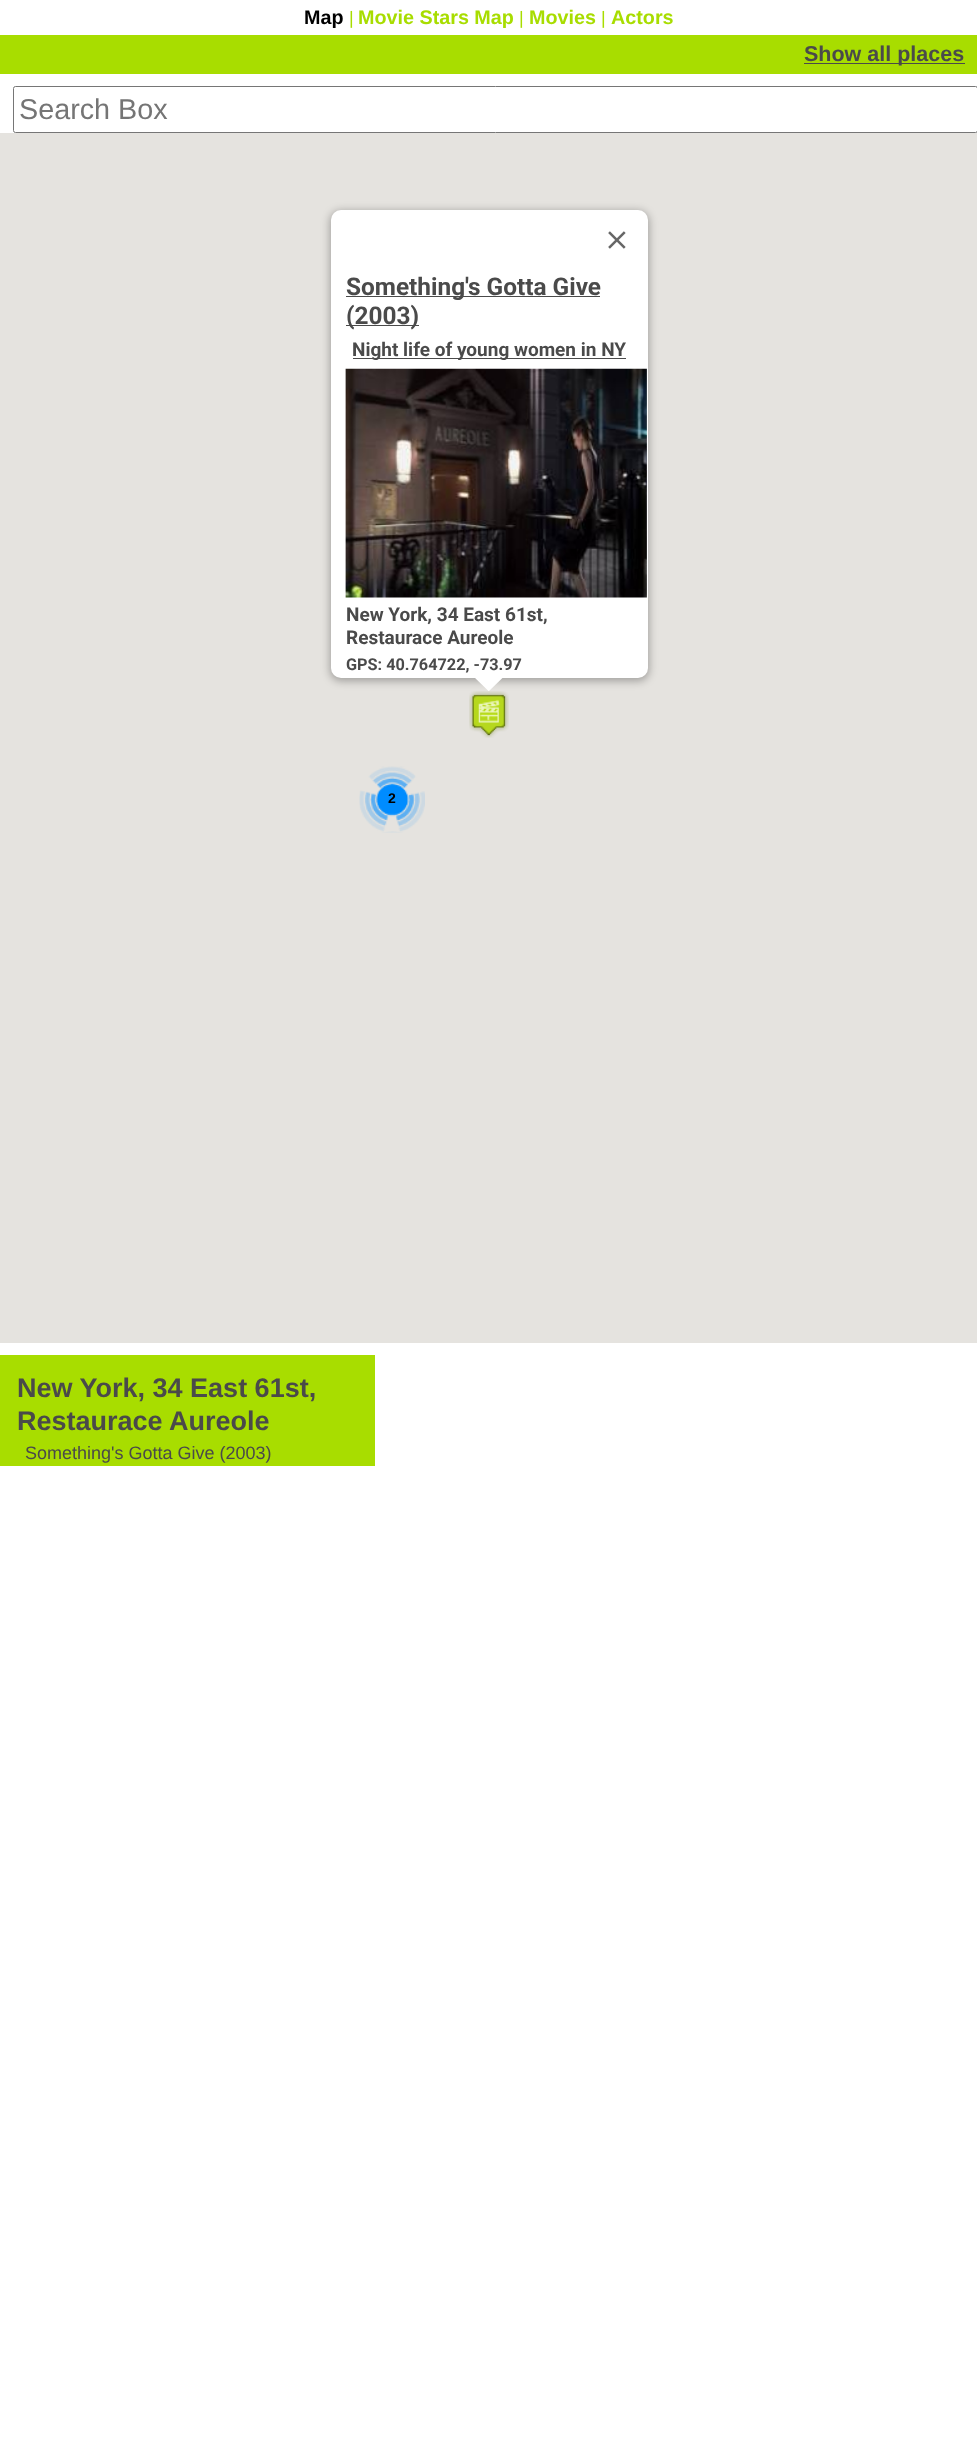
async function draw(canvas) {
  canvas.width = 977;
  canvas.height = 2443;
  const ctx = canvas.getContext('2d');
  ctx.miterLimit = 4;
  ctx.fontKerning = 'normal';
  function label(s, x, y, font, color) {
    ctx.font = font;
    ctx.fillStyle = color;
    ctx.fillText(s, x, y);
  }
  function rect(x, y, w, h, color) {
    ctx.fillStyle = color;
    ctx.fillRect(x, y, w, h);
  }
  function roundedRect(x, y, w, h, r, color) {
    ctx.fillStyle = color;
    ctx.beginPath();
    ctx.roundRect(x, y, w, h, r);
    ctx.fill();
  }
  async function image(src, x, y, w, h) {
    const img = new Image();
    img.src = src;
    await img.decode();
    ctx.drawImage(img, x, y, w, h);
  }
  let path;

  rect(0, 0, 977, 2443, '#fff');
  label('Map', 304, 24, 'bold 19.75px Liberation Sans', '#000');
  label('|', 349, 24, '18px Liberation Sans', '#a8dd00');
  label('Movie Stars Map', 358, 24, 'bold 19.75px Liberation Sans', '#a8dd00');
  label('|', 519, 24, '18px Liberation Sans', '#a8dd00');
  label('Movies', 529, 24, 'bold 19.75px Liberation Sans', '#a8dd00');
  label('|', 601, 24, '18px Liberation Sans', '#a8dd00');
  label('Actors', 611, 24, 'bold 19.75px Liberation Sans', '#a8dd00');
  rect(0, 35, 977, 39, '#a8dd00');
  rect(804, 63, 161, 1, '#4a4a4a');
  label('Show all places', 804, 61, 'bold 21.5px Liberation Sans', '#4a4a4a');
  ctx.beginPath();
  ctx.roundRect(13.5, 86.5, 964, 46, 2);
  ctx.strokeStyle = '#767676';
  ctx.stroke();
  label('Search Box', 19, 119, '28.75px Liberation Sans', '#757575');
  rect(0, 133, 977, 1210, '#e5e3df');
  await image('assets/img4.png', 469, 691, 40, 47);
  ctx.fillStyle = '#0000004d';
  ctx.filter = 'blur(4.5px)';
  ctx.beginPath();
  ctx.roundRect(330, 211, 319, 470, 11);
  ctx.fill();
  ctx.filter = 'none';
  roundedRect(331, 210, 317, 468, 10, '#fff');
  await image('assets/img1.png', 608, 231, 18, 18);
  rect(346, 296, 254, 1, '#4a4a4a');
  label('Something\'s Gotta Give', 346, 295, 'bold 24.4px Roboto', '#4a4a4a');
  rect(346, 325, 73, 1, '#4a4a4a');
  label('(2003)', 346, 324, 'bold 24.4px Roboto', '#4a4a4a');
  rect(353, 358, 273, 1, '#4a4a4a');
  label('Night life of young women in NY', 352, 356, 'bold 19px Roboto', '#4a4a4a');
  await image('assets/img2.png', 345, 368, 302, 230);
  label('New York, 34 East 61st,', 346, 621, 'bold 19px Roboto', '#4a4a4a');
  label('Restaurace Aureole', 346, 644, 'bold 19px Roboto', '#4a4a4a');
  label('GPS: 40.764722, -73.97', 346, 670, 'bold 16.25px Roboto', '#4a4a4a');
  ctx.fillStyle = '#fff';
  path = new Path2D('M474 677V676H504.5L489 691H488.5Z');
  ctx.fill(path);
  await image('assets/img3.png', 359, 766, 66, 67);
  label('2', 388, 803, 'bold 14px Liberation Sans', '#000');
  rect(0, 1355, 375, 111, '#a8dd00');
  label('New York, 34 East 61st,', 17, 1397, 'bold 27px Liberation Sans', '#4a4a4a');
  label('Restaurace Aureole', 17, 1430, 'bold 27px Liberation Sans', '#4a4a4a');
  label('Something\'s Gotta Give (2003)', 25, 1459, '18px Liberation Sans', '#4a4a4a');
}

draw(document.querySelector('canvas'));
